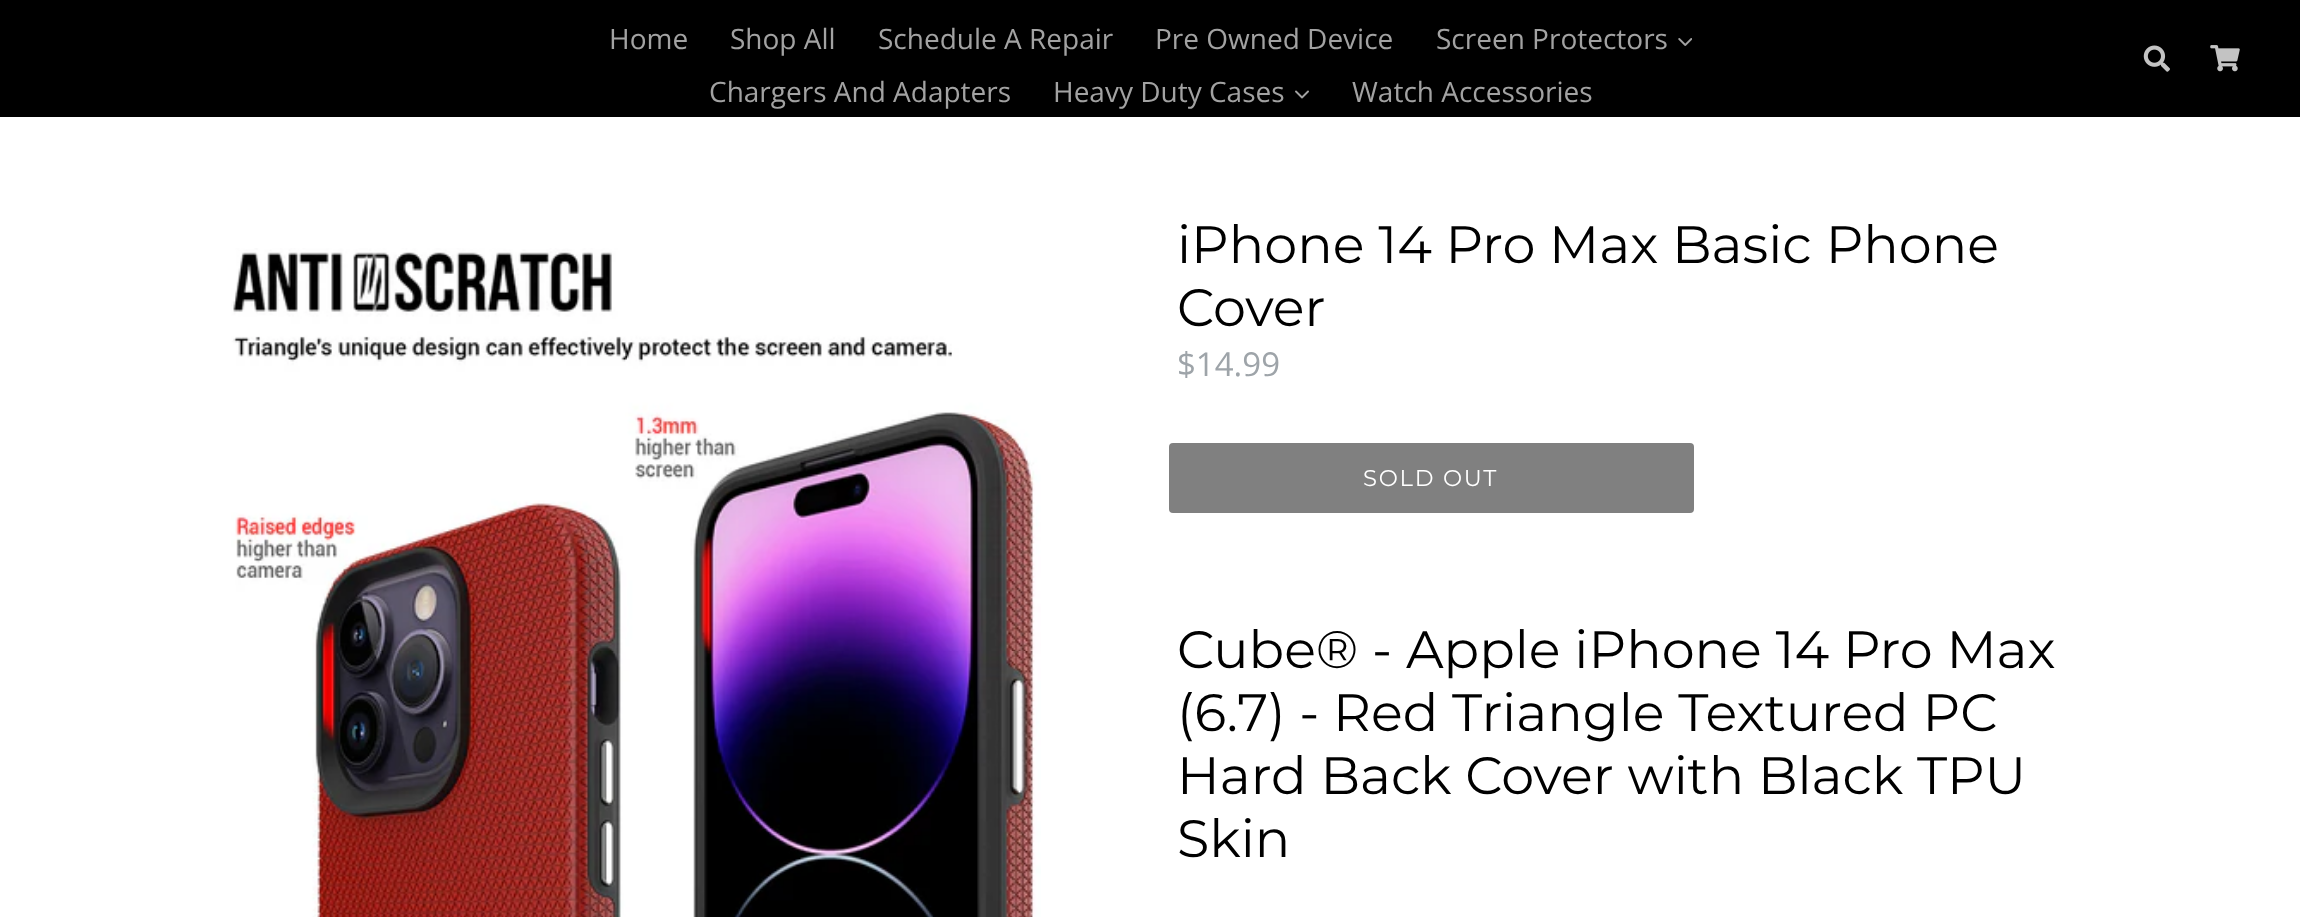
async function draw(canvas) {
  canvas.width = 2300;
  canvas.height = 917;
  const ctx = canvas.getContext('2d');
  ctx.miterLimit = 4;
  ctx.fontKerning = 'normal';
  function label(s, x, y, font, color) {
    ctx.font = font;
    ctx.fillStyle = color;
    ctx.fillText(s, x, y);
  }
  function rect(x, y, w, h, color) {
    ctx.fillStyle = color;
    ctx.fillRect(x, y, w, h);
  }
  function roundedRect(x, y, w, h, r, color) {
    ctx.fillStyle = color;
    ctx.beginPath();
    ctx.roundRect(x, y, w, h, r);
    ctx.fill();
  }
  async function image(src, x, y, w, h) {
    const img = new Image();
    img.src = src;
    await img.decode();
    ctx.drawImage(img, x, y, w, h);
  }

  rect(0, 0, 2300, 917, '#fff');
  rect(0, 0, 2300, 117, '#000');
  label('Home', 609, 49, '28px Open Sans', '#a2a2a2');
  label('Shop All', 730, 49, '28px Open Sans', '#a2a2a2');
  label('Schedule A Repair', 878, 49, '28px Open Sans', '#a2a2a2');
  label('Pre Owned Device', 1155, 49, '28px Open Sans', '#a2a2a2');
  label('Screen Protectors', 1436, 49, '28px Open Sans', '#a2a2a2');
  await image('assets/img1.png', 1678, 38, 14, 8);
  label('Chargers And Adapters', 709, 102, '28px Open Sans', '#a2a2a2');
  label('Heavy Duty Cases', 1053, 102, '28px Open Sans', '#a2a2a2');
  await image('assets/img2.png', 1295, 90, 14, 9);
  label('Watch Accessories', 1352, 102, '28px Open Sans', '#a2a2a2');
  await image('assets/img3.png', 2143, 45, 27, 27);
  await image('assets/img4.png', 2210, 45, 30, 27);
  await image('assets/img5.png', 231, 248, 810, 669);
  label('iPhone 14 Pro Max Basic Phone', 1177, 263, '100 52.5px Montserrat', '#000');
  label('Cover', 1177, 326, '100 52.5px Montserrat', '#000');
  label('$14.99', 1177, 376, '33px Open Sans', '#9ea4a9');
  roundedRect(1169, 443, 525, 70, 4, '#808080');
  ctx.letterSpacing = '1.75px';
  label('SOLD OUT', 1363, 486, '100 22.75px Montserrat', '#fff');
  ctx.letterSpacing = '0px';
  label('Cube® - Apple iPhone 14 Pro Max', 1177, 668, '100 52.5px Montserrat', '#000');
  label('(6.7) - Red Triangle Textured PC', 1177, 731, '100 52.5px Montserrat', '#000');
  label('Hard Back Cover with Black TPU', 1177, 794, '100 52.5px Montserrat', '#000');
  label('Skin', 1177, 857, '100 52.5px Montserrat', '#000');
}

draw(document.querySelector('canvas'));
